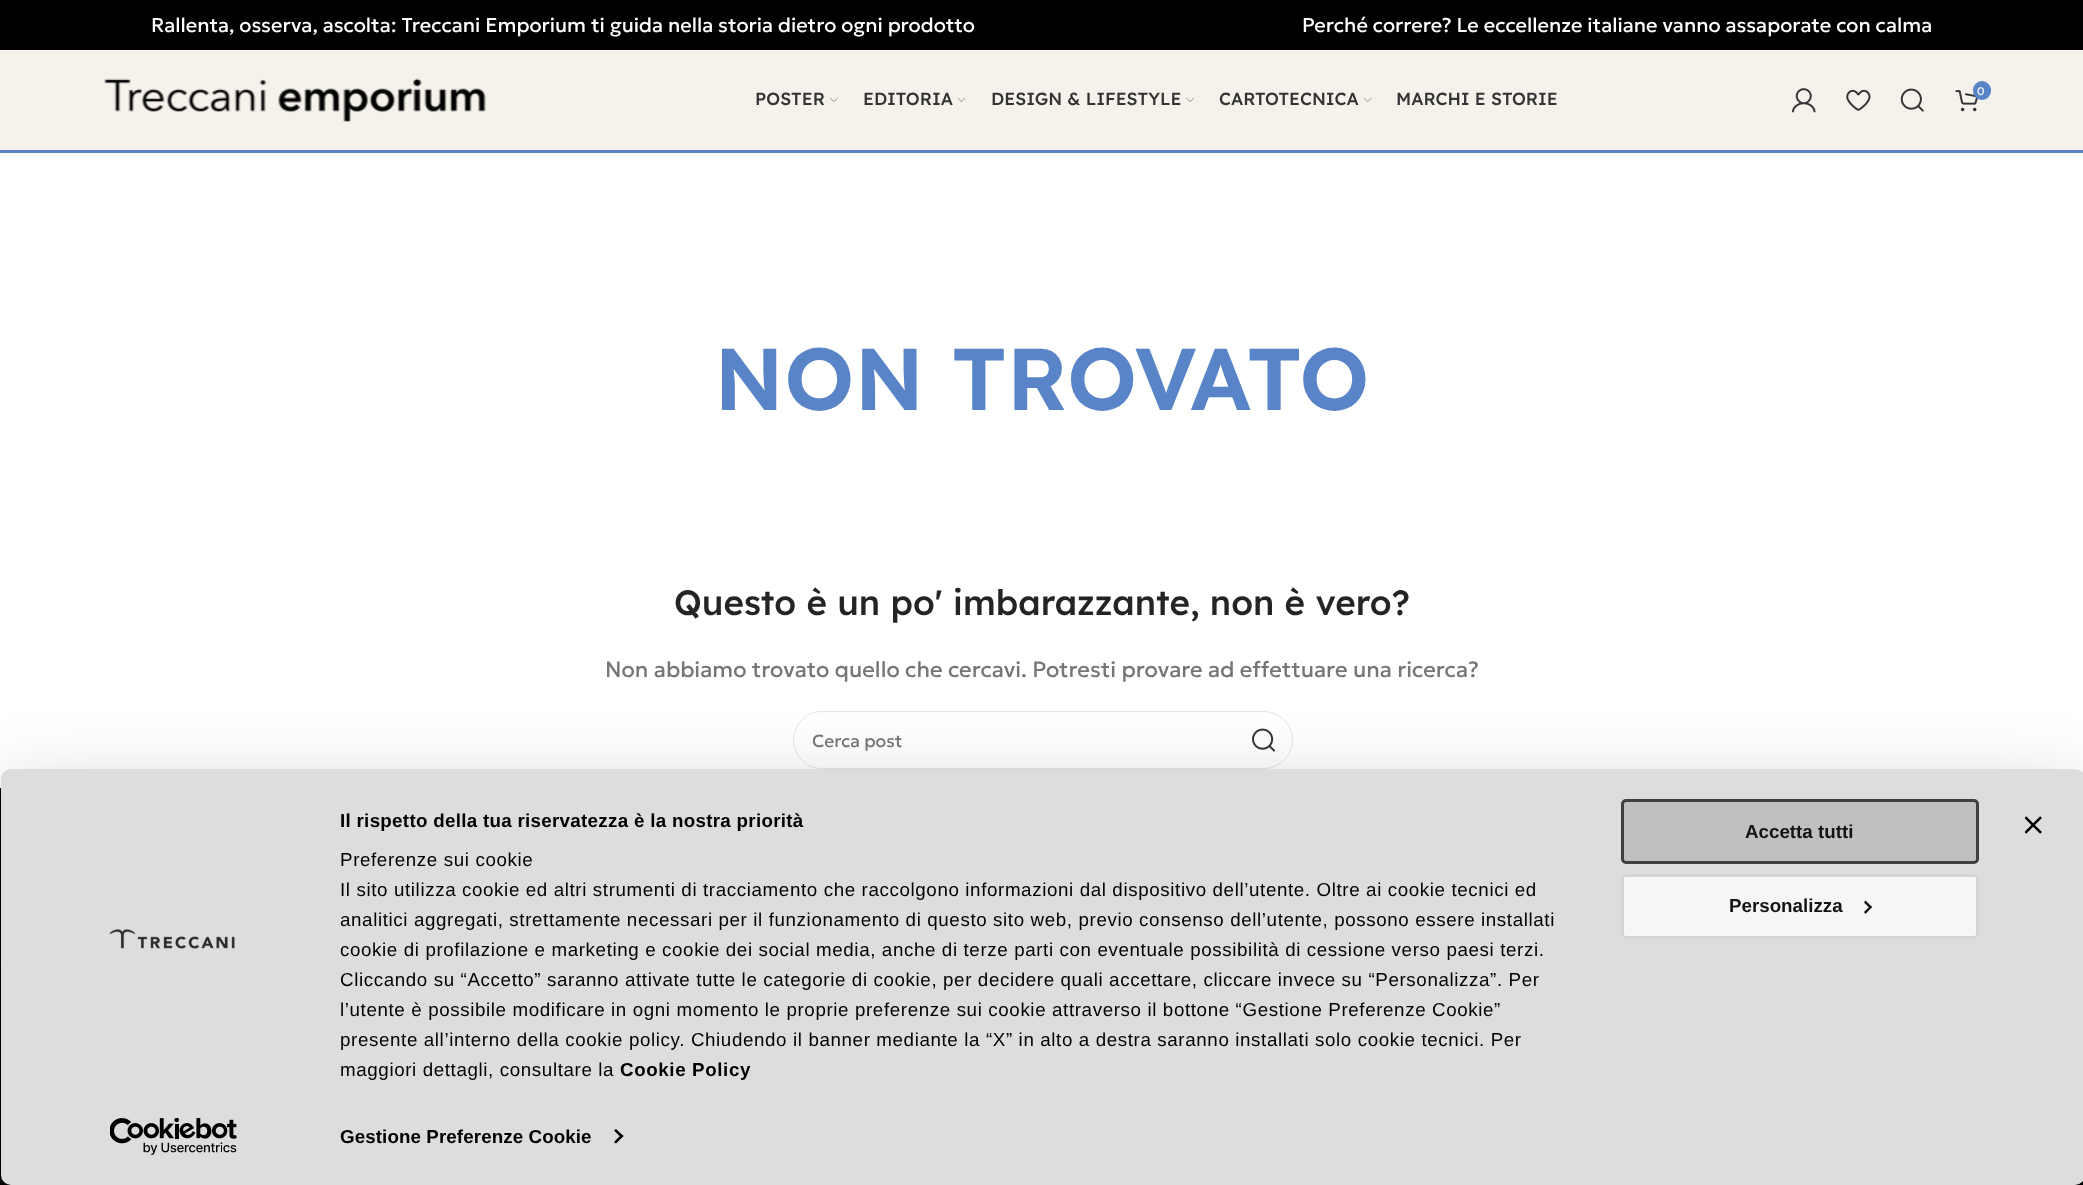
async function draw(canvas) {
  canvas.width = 2083;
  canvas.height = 1185;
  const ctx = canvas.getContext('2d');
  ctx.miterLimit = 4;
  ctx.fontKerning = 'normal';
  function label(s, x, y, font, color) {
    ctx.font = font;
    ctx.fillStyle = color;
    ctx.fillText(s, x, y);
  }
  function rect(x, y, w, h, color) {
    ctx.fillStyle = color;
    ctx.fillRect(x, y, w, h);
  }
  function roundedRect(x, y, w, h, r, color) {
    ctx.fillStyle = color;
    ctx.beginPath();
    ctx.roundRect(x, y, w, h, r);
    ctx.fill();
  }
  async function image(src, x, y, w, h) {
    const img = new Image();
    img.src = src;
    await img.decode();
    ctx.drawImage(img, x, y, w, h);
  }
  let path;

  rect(0, 0, 2083, 1185, '#fff');
  rect(0, 0, 2083, 50, '#000');
  label('Rallenta, osserva, ascolta: Treccani Emporium ti guida nella storia dietro ogni prodotto', 151, 32, '20px Geologica', '#fff');
  label('Perché correre? Le eccellenze italiane vanno assaporate con calma', 1302, 32, '20px Geologica', '#fff');
  rect(0, 50, 2083, 100, '#f5f1eb');
  rect(0, 150, 2083, 3, '#5985c8');
  await image('assets/img1.png', 104, 78, 382, 44);
  await image('assets/img2.png', 1792, 88, 24, 25);
  await image('assets/img3.png', 1846, 89, 25, 22);
  await image('assets/img4.png', 1900, 88, 24, 24);
  await image('assets/img5.png', 1955, 90, 23, 22);
  roundedRect(1973, 81, 18, 19, 9, '#5985c8');
  label('0', 1977, 95, '11px Geologica', '#fff');
  label('POSTER', 755, 105, '500 17.5px Lexend Deca', '#333');
  await image('assets/img6.png', 830, 97, 8, 5);
  label('EDITORIA', 863, 105, '500 17.5px Lexend Deca', '#333');
  await image('assets/img7.png', 957, 97, 9, 5);
  label('DESIGN & LIFESTYLE', 991, 105, '500 17.5px Lexend Deca', '#333');
  await image('assets/img8.png', 1186, 97, 8, 5);
  label('CARTOTECNICA', 1219, 105, '500 17.5px Lexend Deca', '#333');
  await image('assets/img9.png', 1363, 97, 9, 5);
  label('MARCHI E STORIE', 1396, 105, '500 17.5px Lexend Deca', '#333');
  label('NON TROVATO', 714, 410, '600 87.5px Lexend Deca', '#5985c8');
  label('Questo è un po\' imbarazzante, non è vero?', 674, 615, '500 35px Lexend Deca', '#242424');
  label('Non abbiamo trovato quello che cercavi. Potresti provare ad effettuare una ricerca?', 605, 677, '22px Geologica', '#767676');
  ctx.beginPath();
  ctx.roundRect(793.5, 711.5, 499, 57, 28.5);
  ctx.strokeStyle = '#e6e6e6';
  ctx.stroke();
  ctx.save();
  ctx.beginPath();
  ctx.rect(813, 729, 383, 22);
  ctx.clip();
  label('Cerca post', 812, 747, '17.5px Geologica', '#767676');
  ctx.restore();
  await image('assets/img10.png', 1252, 728, 24, 24);
  rect(0, 788, 2083, 397, '#000');
  rect(0, 960, 1, 1, '#1a1a1a');
  ctx.fillStyle = '#0000004d';
  ctx.filter = 'blur(44px)';
  ctx.beginPath();
  ctx.roundRect(1, 806, 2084, 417, 10);
  ctx.fill();
  ctx.filter = 'none';
  roundedRect(1, 769, 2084, 416, 10, '#ddd');
  ctx.letterSpacing = '0.3px';
  label('Il rispetto della tua riservatezza è la nostra priorità', 340, 827, 'bold 18.75px Liberation Sans', '#010101');
  ctx.letterSpacing = '0.62px';
  label('Preferenze sui cookie', 340, 866, '18.75px Liberation Sans', '#010101');
  label('Il sito utilizza cookie ed altri strumenti di tracciamento che raccolgono informazioni dal dispositivo dell’utente. Oltre ai cookie tecnici ed', 340, 896, '18.75px Liberation Sans', '#010101');
  label('analitici aggregati, strettamente necessari per il funzionamento di questo sito web, previo consenso dell’utente, possono essere installati', 340, 926, '18.75px Liberation Sans', '#010101');
  label('cookie di profilazione e marketing e cookie dei social media, anche di terze parti con eventuale possibilità di cessione verso paesi terzi.', 340, 956, '18.75px Liberation Sans', '#010101');
  label('Cliccando su “Accetto” saranno attivate tutte le categorie di cookie, per decidere quali accettare, cliccare invece su “Personalizza”. Per', 340, 986, '18.75px Liberation Sans', '#010101');
  label('l’utente è possibile modificare in ogni momento le proprie preferenze sui cookie attraverso il bottone “Gestione Preferenze Cookie”', 340, 1016, '18.75px Liberation Sans', '#010101');
  label('presente all’interno della cookie policy. Chiudendo il banner mediante la “X” in alto a destra saranno installati solo cookie tecnici. Per', 340, 1046, '18.75px Liberation Sans', '#010101');
  label('maggiori dettagli, consultare la', 340, 1076, '18.75px Liberation Sans', '#010101');
  label('Cookie Policy', 620, 1076, 'bold 18.75px Liberation Sans', '#010101');
  ctx.letterSpacing = '0.1px';
  label('Gestione Preferenze Cookie', 340, 1143, 'bold 18.75px Liberation Sans', '#010101');
  ctx.fillStyle = '#000';
  path = new Path2D('M616 1129L623.5 1136L621.5 1138L614 1130.5Z');
  ctx.fill(path);
  path = new Path2D('M621.5 1134.5L623.5 1136L616 1143.5L614 1142Z');
  ctx.fill(path);
  ctx.fillStyle = '#c0c0c0';
  ctx.beginPath();
  ctx.roundRect(1622.5, 800.5, 355, 62, 3.5);
  ctx.fill();
  ctx.strokeStyle = '#3e3f3e';
  ctx.lineWidth = 3;
  ctx.stroke();
  ctx.letterSpacing = '0px';
  label('Accetta tutti', 1745, 838, 'bold 18.75px Liberation Sans', '#141414');
  ctx.fillStyle = '#f6f6f6';
  ctx.beginPath();
  ctx.roundRect(1622.5, 875.5, 355, 62, 3.5);
  ctx.fill();
  ctx.strokeStyle = '#d4d5d5';
  ctx.stroke();
  label('Personalizza', 1729, 912, 'bold 18.75px Liberation Sans', '#141414');
  path = new Path2D('M1865.5 900.5L1872 907L1870.5 909L1864 902.5Z');
  ctx.fill(path);
  path = new Path2D('M1870.5 905.5L1872 907L1865.5 914L1864 912Z');
  ctx.fill(path);
  await image('assets/img11.png', 2025, 816, 17, 18);
  await image('assets/img12.png', 109, 929, 126, 20);
  await image('assets/img13.png', 110, 1118, 127, 37);
}

draw(document.querySelector('canvas'));
